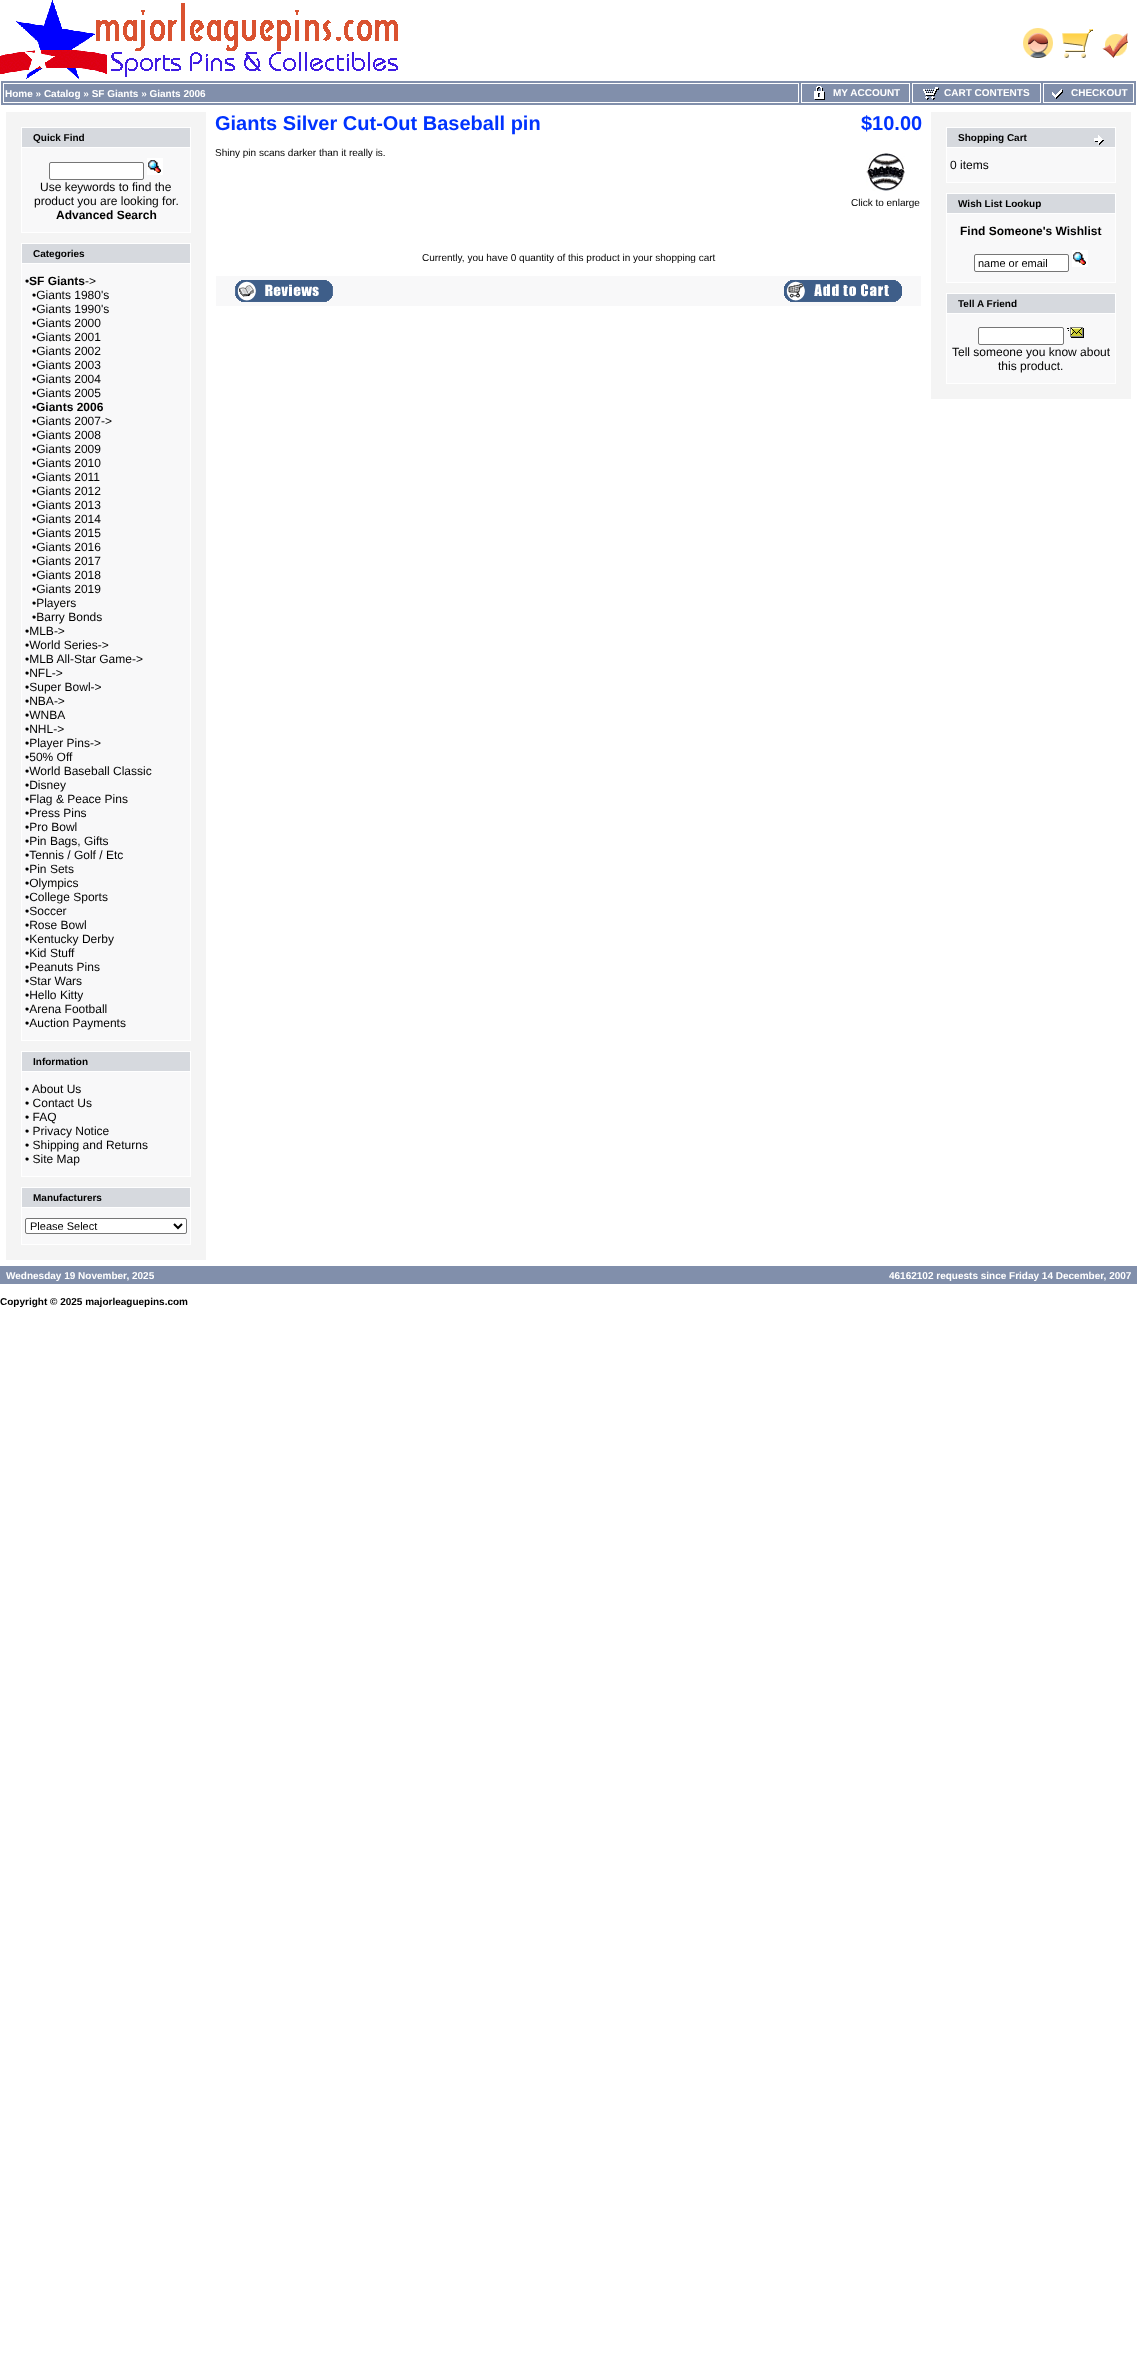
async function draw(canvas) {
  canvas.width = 1137;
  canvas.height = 2370;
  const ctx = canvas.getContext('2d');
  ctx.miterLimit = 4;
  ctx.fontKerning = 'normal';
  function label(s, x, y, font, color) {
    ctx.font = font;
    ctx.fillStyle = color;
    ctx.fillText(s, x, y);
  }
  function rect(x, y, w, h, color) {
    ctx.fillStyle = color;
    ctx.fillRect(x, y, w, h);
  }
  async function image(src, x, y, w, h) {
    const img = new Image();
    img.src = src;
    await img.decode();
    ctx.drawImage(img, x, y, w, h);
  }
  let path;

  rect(0, 0, 1137, 2370, '#fff');
  await image('assets/img1.png', 0, 0, 398, 80);
  await image('assets/img2.png', 1023, 28, 30, 30);
  await image('assets/img3.png', 1062, 29, 31, 29);
  await image('assets/img4.png', 1102, 33, 26, 25);
  rect(1, 81, 1135, 24, '#818fab');
  ctx.strokeStyle = '#fff';
  ctx.strokeRect(3.5, 83.5, 795, 19);
  label('Home » Catalog » SF Giants » Giants 2006', 5, 97, 'bold 10px Liberation Sans', '#fff');
  ctx.strokeRect(801.5, 83.5, 108, 19);
  await image('assets/img5.png', 814, 86, 11, 14);
  label('MY ACCOUNT', 833, 96, 'bold 10px Liberation Sans', '#fff');
  ctx.strokeRect(912.5, 83.5, 128, 19);
  await image('assets/img6.png', 923, 87, 16, 13);
  label('CART CONTENTS', 944, 96, 'bold 10px Liberation Sans', '#fff');
  ctx.strokeRect(1043.5, 83.5, 90, 19);
  await image('assets/img7.png', 1052, 89, 11, 10);
  label('CHECKOUT', 1071, 96, 'bold 10px Liberation Sans', '#fff');
  rect(6, 112, 200, 1148, '#f4f4f4');
  rect(22, 128, 168, 19, '#d6d9de');
  rect(21, 127, 170, 1, '#fff');
  rect(21, 127, 1, 20, '#fff');
  label('Quick Find', 33, 141, 'bold 10px Liberation Sans', '#000');
  rect(190, 127, 1, 20, '#fff');
  rect(21, 147, 170, 86, '#fff');
  rect(22, 148, 168, 84, '#f8f8f9');
  ctx.fillStyle = '#fff';
  ctx.beginPath();
  ctx.roundRect(49.5, 162.5, 94, 17, 1.5);
  ctx.fill();
  ctx.strokeStyle = '#767676';
  ctx.stroke();
  await image('assets/img8.png', 147, 158, 16, 17);
  label('Use keywords to find the', 40, 191, '12px Liberation Sans', '#000');
  label('product you are looking for.', 34, 205, '12px Liberation Sans', '#000');
  label('Advanced Search', 56, 219, 'bold 12px Liberation Sans', '#000');
  rect(22, 244, 168, 19, '#d6d9de');
  rect(21, 243, 170, 1, '#fff');
  rect(21, 243, 1, 20, '#fff');
  label('Categories', 33, 257, 'bold 10px Liberation Sans', '#000');
  rect(190, 243, 1, 20, '#fff');
  rect(21, 263, 170, 778, '#fff');
  rect(22, 264, 168, 776, '#f8f8f9');
  label('•', 25, 285, '12px Liberation Sans', '#000');
  label('SF Giants', 29, 285, 'bold 12px Liberation Sans', '#000');
  label('->', 85, 285, '12px Liberation Sans', '#000');
  label('•Giants 1980\'s', 32, 299, '12px Liberation Sans', '#000');
  label('•Giants 1990\'s', 32, 313, '12px Liberation Sans', '#000');
  label('•Giants 2000', 32, 327, '12px Liberation Sans', '#000');
  label('•Giants 2001', 32, 341, '12px Liberation Sans', '#000');
  label('•Giants 2002', 32, 355, '12px Liberation Sans', '#000');
  label('•Giants 2003', 32, 369, '12px Liberation Sans', '#000');
  label('•Giants 2004', 32, 383, '12px Liberation Sans', '#000');
  label('•Giants 2005', 32, 397, '12px Liberation Sans', '#000');
  label('•', 32, 411, '12px Liberation Sans', '#000');
  label('Giants 2006', 36, 411, 'bold 12px Liberation Sans', '#000');
  label('•Giants 2007->', 32, 425, '12px Liberation Sans', '#000');
  label('•Giants 2008', 32, 439, '12px Liberation Sans', '#000');
  label('•Giants 2009', 32, 453, '12px Liberation Sans', '#000');
  label('•Giants 2010', 32, 467, '12px Liberation Sans', '#000');
  label('•Giants 2011', 32, 481, '12px Liberation Sans', '#000');
  label('•Giants 2012', 32, 495, '12px Liberation Sans', '#000');
  label('•Giants 2013', 32, 509, '12px Liberation Sans', '#000');
  label('•Giants 2014', 32, 523, '12px Liberation Sans', '#000');
  label('•Giants 2015', 32, 537, '12px Liberation Sans', '#000');
  label('•Giants 2016', 32, 551, '12px Liberation Sans', '#000');
  label('•Giants 2017', 32, 565, '12px Liberation Sans', '#000');
  label('•Giants 2018', 32, 579, '12px Liberation Sans', '#000');
  label('•Giants 2019', 32, 593, '12px Liberation Sans', '#000');
  label('•Players', 32, 607, '12px Liberation Sans', '#000');
  label('•Barry Bonds', 32, 621, '12px Liberation Sans', '#000');
  label('•MLB->', 25, 635, '12px Liberation Sans', '#000');
  label('•World Series->', 25, 649, '12px Liberation Sans', '#000');
  label('•MLB All-Star Game->', 25, 663, '12px Liberation Sans', '#000');
  label('•NFL->', 25, 677, '12px Liberation Sans', '#000');
  label('•Super Bowl->', 25, 691, '12px Liberation Sans', '#000');
  label('•NBA->', 25, 705, '12px Liberation Sans', '#000');
  label('•WNBA', 25, 719, '12px Liberation Sans', '#000');
  label('•NHL->', 25, 733, '12px Liberation Sans', '#000');
  label('•Player Pins->', 25, 747, '12px Liberation Sans', '#000');
  label('•50% Off', 25, 761, '12px Liberation Sans', '#000');
  label('•World Baseball Classic', 25, 775, '12px Liberation Sans', '#000');
  label('•Disney', 25, 789, '12px Liberation Sans', '#000');
  label('•Flag & Peace Pins', 25, 803, '12px Liberation Sans', '#000');
  label('•Press Pins', 25, 817, '12px Liberation Sans', '#000');
  label('•Pro Bowl', 25, 831, '12px Liberation Sans', '#000');
  label('•Pin Bags, Gifts', 25, 845, '12px Liberation Sans', '#000');
  label('•Tennis / Golf / Etc', 25, 859, '12px Liberation Sans', '#000');
  label('•Pin Sets', 25, 873, '12px Liberation Sans', '#000');
  label('•Olympics', 25, 887, '12px Liberation Sans', '#000');
  label('•College Sports', 25, 901, '12px Liberation Sans', '#000');
  label('•Soccer', 25, 915, '12px Liberation Sans', '#000');
  label('•Rose Bowl', 25, 929, '12px Liberation Sans', '#000');
  label('•Kentucky Derby', 25, 943, '12px Liberation Sans', '#000');
  label('•Kid Stuff', 25, 957, '12px Liberation Sans', '#000');
  label('•Peanuts Pins', 25, 971, '12px Liberation Sans', '#000');
  label('•Star Wars', 25, 985, '12px Liberation Sans', '#000');
  label('•Hello Kitty', 25, 999, '12px Liberation Sans', '#000');
  label('•Arena Football', 25, 1013, '12px Liberation Sans', '#000');
  label('•Auction Payments', 25, 1027, '12px Liberation Sans', '#000');
  rect(22, 1052, 168, 19, '#d6d9de');
  rect(21, 1051, 170, 1, '#fff');
  rect(21, 1051, 1, 20, '#fff');
  label('Information', 33, 1065, 'bold 10px Liberation Sans', '#000');
  rect(190, 1051, 1, 20, '#fff');
  rect(21, 1071, 170, 106, '#fff');
  rect(22, 1072, 168, 104, '#f8f8f9');
  label('•', 25, 1093, '12px Liberation Sans', '#000');
  label('About Us', 32, 1093, '12px Liberation Sans', '#000');
  label('• Contact Us', 25, 1107, '12px Liberation Sans', '#000');
  label('• FAQ', 25, 1121, '12px Liberation Sans', '#000');
  label('• Privacy Notice', 25, 1135, '12px Liberation Sans', '#000');
  label('• Shipping and Returns', 25, 1149, '12px Liberation Sans', '#000');
  label('• Site Map', 25, 1163, '12px Liberation Sans', '#000');
  rect(22, 1188, 168, 19, '#d6d9de');
  rect(21, 1187, 170, 1, '#fff');
  rect(21, 1187, 1, 20, '#fff');
  label('Manufacturers', 33, 1201, 'bold 10px Liberation Sans', '#000');
  rect(190, 1187, 1, 20, '#fff');
  rect(21, 1207, 170, 38, '#fff');
  rect(22, 1208, 168, 36, '#f8f8f9');
  ctx.fillStyle = '#fff';
  ctx.beginPath();
  ctx.roundRect(25.5, 1218.5, 161, 15, 1.5);
  ctx.fill();
  ctx.stroke();
  path = new Path2D('M174 1224L178 1228L182 1224');
  ctx.strokeStyle = '#000';
  ctx.lineWidth = 2;
  ctx.stroke(path);
  label('Please Select', 30, 1230, '11px Liberation Sans', '#000');
  label('Giants Silver Cut-Out Baseball pin', 215, 130, 'bold 20px Liberation Sans', '#03f');
  label('$10.00', 861, 130, 'bold 20px Liberation Sans', '#03f');
  label('Shiny pin scans darker than it really is.', 215, 156, '10px Liberation Sans', '#000');
  await image('assets/img9.png', 866, 153, 39, 38);
  label('Click to enlarge', 851, 206, '10px Liberation Sans', '#000');
  label('Currently, you have 0 quantity of this product in your shopping cart', 422, 261, '10px Liberation Sans', '#000');
  rect(216, 276, 705, 30, '#f8f8f9');
  await image('assets/img10.png', 235, 280, 98, 22);
  await image('assets/img11.png', 784, 280, 118, 22);
  rect(931, 112, 200, 287, '#f4f4f4');
  rect(947, 128, 168, 19, '#d6d9de');
  rect(946, 127, 170, 1, '#fff');
  rect(946, 127, 1, 20, '#fff');
  label('Shopping Cart', 958, 141, 'bold 10px Liberation Sans', '#000');
  rect(1115, 127, 1, 20, '#fff');
  await image('assets/img12.png', 1094, 135, 10, 10);
  rect(946, 147, 170, 36, '#fff');
  rect(947, 148, 168, 34, '#f8f8f9');
  label('0 items', 950, 169, '12px Liberation Sans', '#000');
  rect(947, 194, 168, 19, '#d6d9de');
  rect(946, 193, 170, 1, '#fff');
  rect(946, 193, 1, 20, '#fff');
  label('Wish List Lookup', 958, 207, 'bold 10px Liberation Sans', '#000');
  rect(1115, 193, 1, 20, '#fff');
  rect(946, 213, 170, 70, '#fff');
  rect(947, 214, 168, 68, '#f8f8f9');
  label('Find Someone\'s Wishlist', 960, 235, 'bold 12px Liberation Sans', '#000');
  ctx.fillStyle = '#fff';
  ctx.beginPath();
  ctx.roundRect(974.5, 254.5, 94, 17, 1.5);
  ctx.fill();
  ctx.strokeStyle = '#767676';
  ctx.lineWidth = 1;
  ctx.stroke();
  label('name or email', 978, 267, '11px Liberation Sans', '#000');
  await image('assets/img8.png', 1072, 250, 16, 17);
  rect(947, 294, 168, 19, '#d6d9de');
  rect(946, 293, 170, 1, '#fff');
  rect(946, 293, 1, 20, '#fff');
  label('Tell A Friend', 958, 307, 'bold 10px Liberation Sans', '#000');
  rect(1115, 293, 1, 20, '#fff');
  rect(946, 313, 170, 71, '#fff');
  rect(947, 314, 168, 69, '#f8f8f9');
  ctx.fillStyle = '#fff';
  ctx.beginPath();
  ctx.roundRect(978.5, 327.5, 85, 17, 1.5);
  ctx.fill();
  ctx.stroke();
  await image('assets/img13.png', 1067, 327, 17, 11);
  label('Tell someone you know about', 952, 356, '12px Liberation Sans', '#000');
  label('this product.', 998, 370, '12px Liberation Sans', '#000');
  rect(0, 1266, 1137, 18, '#818fab');
  label('Wednesday 19 November, 2025', 6, 1279, 'bold 10px Liberation Sans', '#fff');
  label('46162102 requests since Friday 14 December, 2007', 889, 1279, 'bold 10px Liberation Sans', '#fff');
  label('Copyright © 2025 majorleaguepins.com', 0, 1305, 'bold 10px Liberation Sans', '#000');
}

draw(document.querySelector('canvas'));
